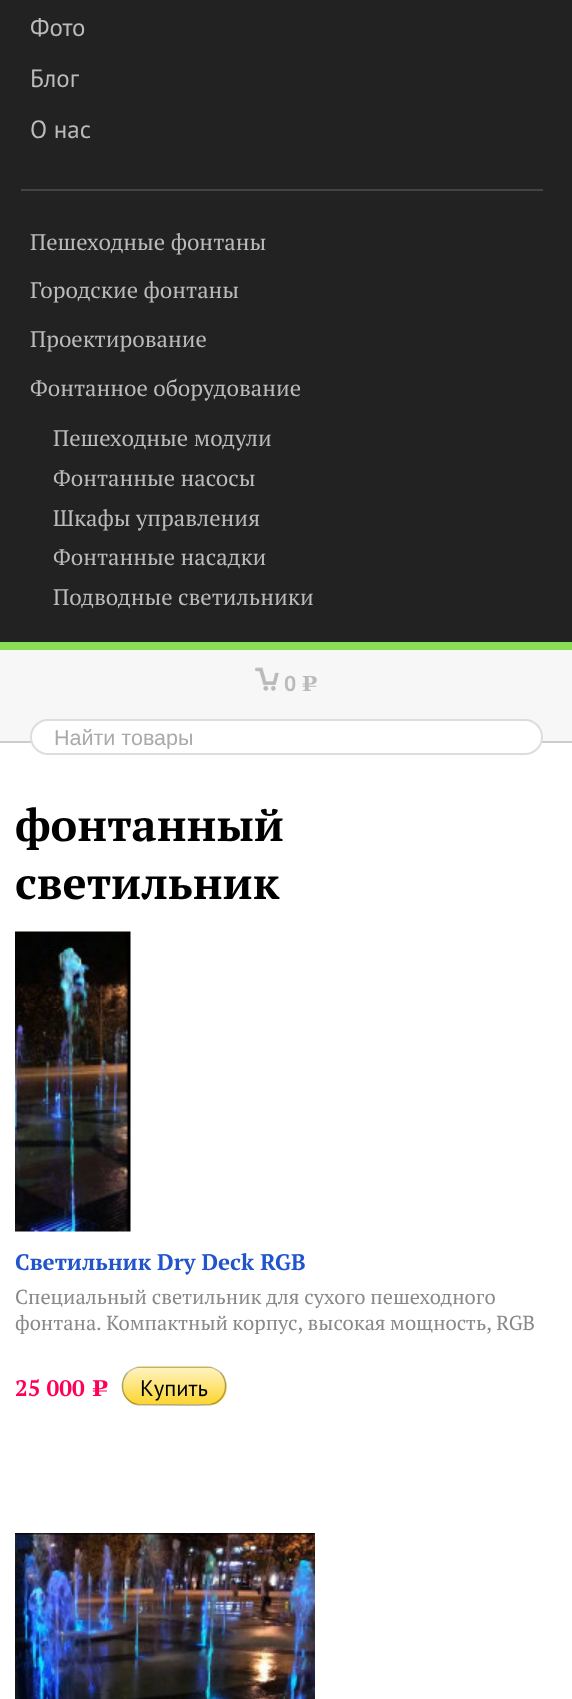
async function draw(canvas) {
  canvas.width = 572;
  canvas.height = 1699;
  const ctx = canvas.getContext('2d');
  ctx.miterLimit = 4;
  ctx.fontKerning = 'normal';
  function label(s, x, y, font, color) {
    ctx.font = font;
    ctx.fillStyle = color;
    ctx.fillText(s, x, y);
  }
  function rect(x, y, w, h, color) {
    ctx.fillStyle = color;
    ctx.fillRect(x, y, w, h);
  }
  function roundedRect(x, y, w, h, r, color) {
    ctx.fillStyle = color;
    ctx.beginPath();
    ctx.roundRect(x, y, w, h, r);
    ctx.fill();
  }
  async function image(src, x, y, w, h) {
    const img = new Image();
    img.src = src;
    await img.decode();
    ctx.drawImage(img, x, y, w, h);
  }
  let gradient, path;

  rect(0, 0, 572, 1699, '#222');
  rect(21, 189, 522, 2, '#444');
  label('Фото', 30, 36, '25px PT Sans', '#bbb');
  label('Блог', 30, 87, '25px PT Sans', '#bbb');
  label('О нас', 30, 138, '25px PT Sans', '#bbb');
  label('Пешеходные фонтаны', 30, 250, '22.5px PT Serif', '#bbb');
  label('Городские фонтаны', 30, 298, '22.5px PT Serif', '#bbb');
  label('Проектирование', 30, 347, '22.5px PT Serif', '#bbb');
  label('Фонтанное оборудование', 30, 396, '22.5px PT Serif', '#bbb');
  label('Пешеходные модули', 53, 446, '22.5px PT Serif', '#bbb');
  label('Фонтанные насосы', 53, 486, '22.5px PT Serif', '#bbb');
  label('Шкафы управления', 53, 526, '22.5px PT Serif', '#bbb');
  label('Фонтанные насадки', 53, 565, '22.5px PT Serif', '#bbb');
  label('Подводные светильники', 53, 605, '22.5px PT Serif', '#bbb');
  rect(0, 743, 572, 956, '#fff');
  rect(0, 642, 572, 8, '#8d5');
  rect(0, 650, 572, 91, '#f7f7f7');
  rect(0, 741, 572, 2, '#ccc');
  await image('assets/img1.png', 255, 667, 24, 24);
  label('0', 284, 691, 'bold 21.5px PT Sans', '#bbb');
  label('Р', 301, 691, 'bold 21.5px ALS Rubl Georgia', '#bbb');
  ctx.fillStyle = '#fff';
  ctx.beginPath();
  ctx.roundRect(31, 720, 511, 34, 17);
  ctx.fill();
  ctx.strokeStyle = '#ddd';
  ctx.lineWidth = 2;
  ctx.stroke();
  ctx.save();
  ctx.beginPath();
  ctx.rect(54, 725, 444, 24);
  ctx.clip();
  label('Найти товары', 54, 745, '21.5px Liberation Sans', '#aaa');
  ctx.restore();
  label('фонтанный', 15, 841, 'bold 45px PT Serif', '#000');
  label('светильник', 15, 899, 'bold 45px PT Serif', '#000');
  await image('assets/img2.png', 15, 931, 116, 301);
  label('Светильник Dry Deck RGB', 15, 1270, 'bold 22.5px PT Serif', '#25c');
  label('Специальный светильник для сухого пешеходного', 15, 1304, '20.25px PT Serif', '#888');
  ctx.wordSpacing = '-0.5px';
  label('фонтана. Компактный корпус, высокая мощность, RGB', 15, 1330, '20.25px PT Serif', '#888');
  ctx.wordSpacing = '0px';
  label('25 000', 15, 1396, 'bold 22.5px PT Serif', '#f05');
  label('Р', 91, 1396, 'bold 22.5px ALS Rubl Georgia', '#f05');
  roundedRect(122, 1367, 105, 39, 19.5, '#fcd630');
  ctx.save();
  ctx.beginPath();
  ctx.roundRect(122, 1367, 105, 39, 19.5);
  ctx.clip();
  gradient = ctx.createLinearGradient(174, 1368, 174, 1404);
  gradient.addColorStop(0, '#ffffffb3');
  gradient.addColorStop(1, '#ffffff00');
  ctx.fillStyle = gradient;
  ctx.fillRect(122, 1368, 105, 35);
  gradient = ctx.createLinearGradient(174, 1404, 174, 1440);
  gradient.addColorStop(0, '#ffffffb3');
  gradient.addColorStop(1, '#ffffff00');
  ctx.fillStyle = gradient;
  ctx.fillRect(133, 1404, 83, 2);
  ctx.restore();
  path = new Path2D('M127.5 1372.5C131.5 1369 136 1367 141 1367H207C212 1367 216.5 1369 220.5 1372.5');
  ctx.strokeStyle = '#00000033';
  ctx.lineWidth = 1.5;
  ctx.stroke(path);
  path = new Path2D('M220.5 1372.5C224 1376.5 226 1382.5 225.5 1388C225 1396 218.5 1403 210.5 1404.5L196 1405L137.5 1404.5C129.5 1403 123 1396 122.5 1388C122 1382.5 124 1376.5 127.5 1372.5');
  ctx.strokeStyle = '#0000004d';
  ctx.stroke(path);
  label('Купить', 140, 1396, '22.5px PT Sans', '#000');
  await image('assets/img3.png', 15, 1533, 300, 166);
}

draw(document.querySelector('canvas'));
